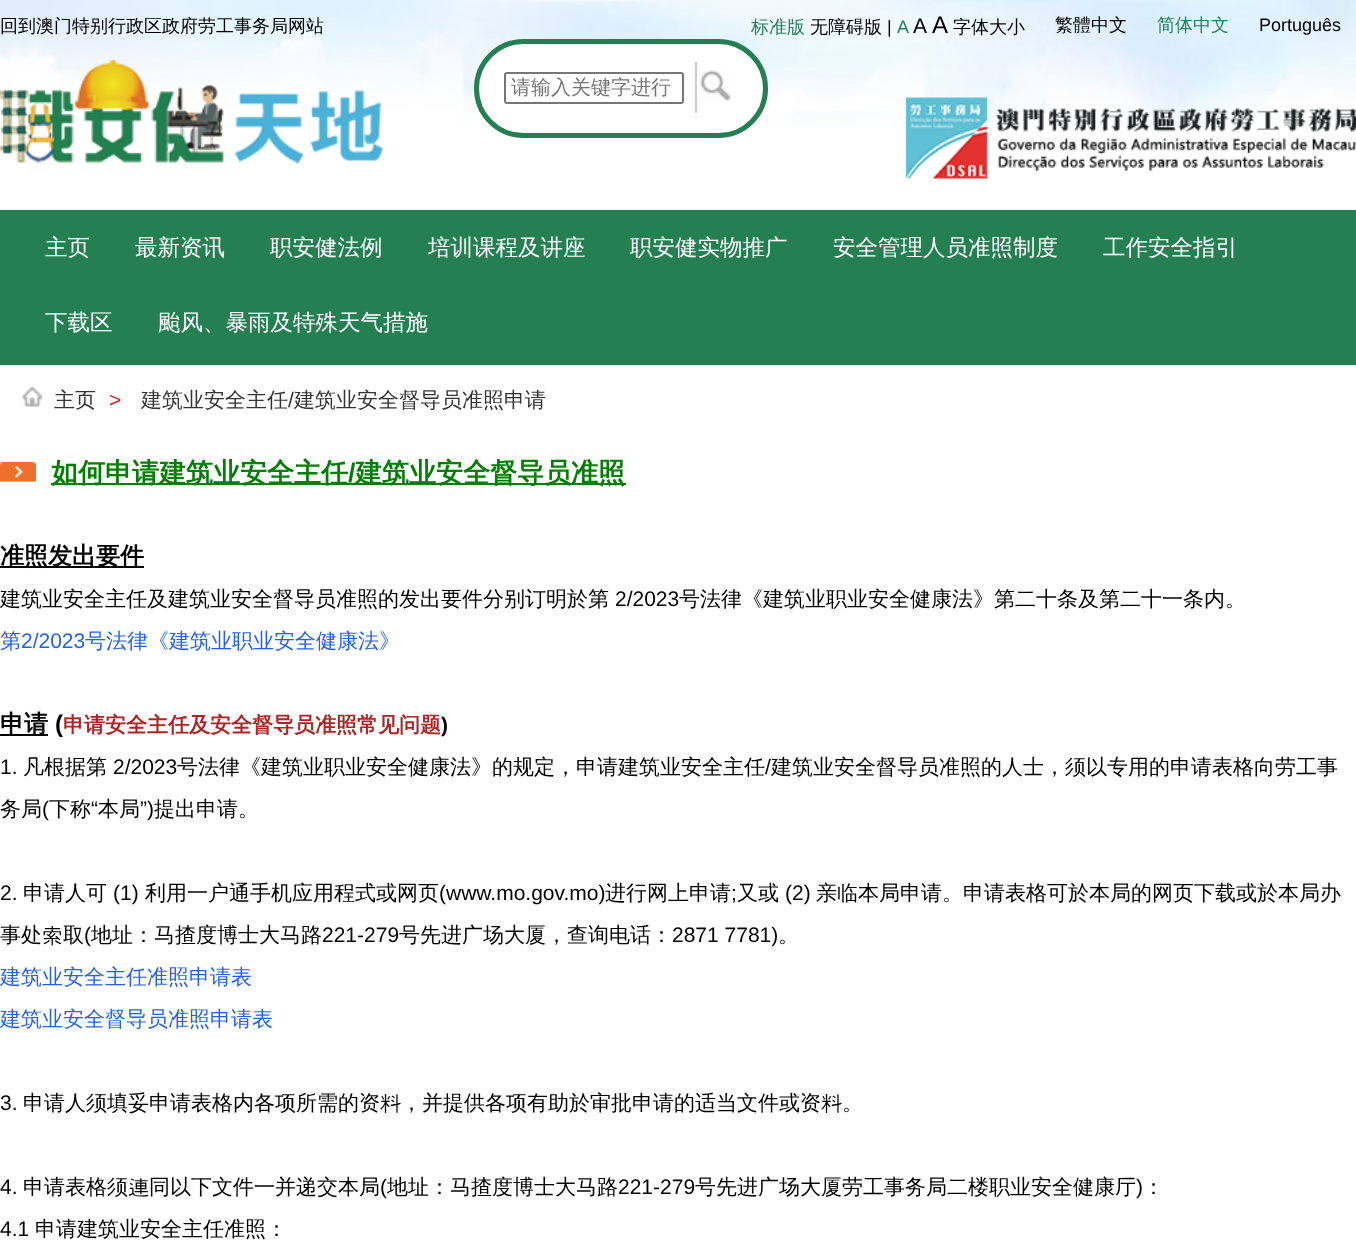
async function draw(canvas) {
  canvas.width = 1356;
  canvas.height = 1242;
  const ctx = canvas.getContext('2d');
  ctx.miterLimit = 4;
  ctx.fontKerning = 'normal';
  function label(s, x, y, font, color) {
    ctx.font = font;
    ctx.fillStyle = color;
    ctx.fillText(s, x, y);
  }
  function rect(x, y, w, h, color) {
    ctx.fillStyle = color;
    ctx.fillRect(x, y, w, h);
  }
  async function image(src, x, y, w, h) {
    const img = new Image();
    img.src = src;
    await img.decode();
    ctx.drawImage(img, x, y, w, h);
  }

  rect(0, 0, 1356, 1242, '#fff');
  await image('assets/img1.png', 0, 0, 1356, 128);
  label('回到澳门特别行政区政府劳工事务局网站', 0, 32, '500 18px WenQuanYi Zen Hei', '#000');
  label('标准版', 751, 33, '500 18px WenQuanYi Zen Hei', '#238052');
  label('无障碍版', 810, 33, '500 18px WenQuanYi Zen Hei', '#000');
  label('|', 887, 33, '18px Liberation Sans', '#000');
  label('A', 897, 33, '18px Liberation Sans', '#238052');
  label('A', 913, 33, '21px Liberation Sans', '#000');
  label('A', 932, 33, '24px Liberation Sans', '#000');
  label('字体大小', 953, 33, '500 18px WenQuanYi Zen Hei', '#000');
  label('繁體中文', 1055, 31, '500 18px WenQuanYi Zen Hei', '#000');
  label('简体中文', 1157, 31, '500 18px WenQuanYi Zen Hei', '#238052');
  label('Português', 1259, 31, '18px Liberation Sans', '#000');
  await image('assets/img2.png', 0, 60, 383, 104);
  ctx.fillStyle = '#fff';
  ctx.beginPath();
  ctx.roundRect(476.5, 41.5, 289, 94, 47);
  ctx.fill();
  ctx.strokeStyle = '#238052';
  ctx.lineWidth = 5;
  ctx.stroke();
  rect(695, 62, 2, 51, '#ccc');
  ctx.beginPath();
  ctx.roundRect(505, 73, 178, 30, 2);
  ctx.strokeStyle = '#767676';
  ctx.lineWidth = 2;
  ctx.stroke();
  label('请输入关键字进行', 511, 94, '500 20px WenQuanYi Zen Hei', '#757575');
  await image('assets/img3.png', 700, 70, 31, 31);
  await image('assets/img4.png', 906, 97, 450, 82);
  rect(0, 210, 1356, 155, '#248052');
  label('主页', 45, 255, '500 22.5px WenQuanYi Zen Hei', '#fff');
  label('最新资讯', 135, 255, '500 22.5px WenQuanYi Zen Hei', '#fff');
  label('职安健法例', 270, 255, '500 22.5px WenQuanYi Zen Hei', '#fff');
  label('培训课程及讲座', 428, 255, '500 22.5px WenQuanYi Zen Hei', '#fff');
  label('职安健实物推广', 630, 255, '500 22.5px WenQuanYi Zen Hei', '#fff');
  label('安全管理人员准照制度', 833, 255, '500 22.5px WenQuanYi Zen Hei', '#fff');
  label('工作安全指引', 1103, 255, '500 22.5px WenQuanYi Zen Hei', '#fff');
  label('下载区', 45, 330, '500 22.5px WenQuanYi Zen Hei', '#fff');
  label('颱风、暴雨及特殊天气措施', 158, 330, '500 22.5px WenQuanYi Zen Hei', '#fff');
  await image('assets/img5.png', 22, 387, 20, 20);
  label('主页', 54, 407, '500 21px WenQuanYi Zen Hei', '#333');
  label('>', 109, 407, '21px Liberation Sans', '#c82c2c');
  label('建筑业安全主任', 141, 407, '500 21px WenQuanYi Zen Hei', '#333');
  label('/', 288, 407, '21px Liberation Sans', '#333');
  label('建筑业安全督导员准照申请', 294, 407, '500 21px WenQuanYi Zen Hei', '#333');
  rect(0, 462, 36, 20, '#faf6ed');
  rect(51, 483, 575, 2, '#008000');
  label('如何申请建筑业安全主任', 51, 482, 'bold 27px WenQuanYi Zen Hei', '#008000');
  label('/', 348, 482, 'bold 27px Liberation Sans', '#008000');
  label('建筑业安全督导员准照', 355, 482, 'bold 27px WenQuanYi Zen Hei', '#008000');
  await image('assets/img6.png', 0, 462, 36, 20);
  rect(0, 566, 144, 2, '#000');
  label('准照发出要件', 0, 564, 'bold 24px WenQuanYi Zen Hei', '#000');
  label('建筑业安全主任及建筑业安全督导员准照的发出要件分别订明於第', 0, 606, '500 21px WenQuanYi Zen Hei', '#000');
  label('2/2023', 615, 606, '21px Liberation Sans', '#000');
  label('号法律《建筑业职业安全健康法》第二十条及第二十一条内。', 679, 606, '500 21px WenQuanYi Zen Hei', '#000');
  label('第', 0, 648, '500 21px WenQuanYi Zen Hei', '#215ffd');
  label('2/2023', 21, 648, '21px Liberation Sans', '#215ffd');
  label('号法律《建筑业职业安全健康法》', 85, 648, '500 21px WenQuanYi Zen Hei', '#215ffd');
  rect(0, 734, 48, 2, '#000');
  label('申请', 0, 732, 'bold 24px WenQuanYi Zen Hei', '#000');
  label('(', 55, 732, 'bold 24px Liberation Sans', '#000');
  label('申请安全主任及安全督导员准照常见问题', 63, 732, 'bold 21px WenQuanYi Zen Hei', '#b22222');
  label(')', 441, 732, 'bold 21px Liberation Sans', '#000');
  label('1.', 0, 774, '21px Liberation Sans', '#000');
  label('凡根据第', 23, 774, '500 21px WenQuanYi Zen Hei', '#000');
  label('2/2023', 113, 774, '21px Liberation Sans', '#000');
  label('号法律《建筑业职业安全健康法》的规定，申请建筑业安全主任', 177, 774, '500 21px WenQuanYi Zen Hei', '#000');
  label('/', 765, 774, '21px Liberation Sans', '#000');
  label('建筑业安全督导员准照的人士，须以专用的申请表格向劳工事', 771, 774, '500 21px WenQuanYi Zen Hei', '#000');
  label('务局', 0, 816, '500 21px WenQuanYi Zen Hei', '#000');
  label('(', 42, 816, '21px Liberation Sans', '#000');
  label('下称', 49, 816, '500 21px WenQuanYi Zen Hei', '#000');
  label('“', 91, 816, '21px Liberation Sans', '#000');
  label('本局', 98, 816, '500 21px WenQuanYi Zen Hei', '#000');
  label('”)', 140, 816, '21px Liberation Sans', '#000');
  label('提出申请。', 154, 816, '500 21px WenQuanYi Zen Hei', '#000');
  label('2.', 0, 900, '21px Liberation Sans', '#000');
  label('申请人可', 23, 900, '500 21px WenQuanYi Zen Hei', '#000');
  label('(1)', 113, 900, '21px Liberation Sans', '#000');
  label('利用一户通手机应用程式或网页', 145, 900, '500 21px WenQuanYi Zen Hei', '#000');
  label('(www.mo.gov.mo)', 439, 900, '21px Liberation Sans', '#000');
  label('进行网上申请', 605, 900, '500 21px WenQuanYi Zen Hei', '#000');
  label(';', 731, 900, '21px Liberation Sans', '#000');
  label('又或', 737, 900, '500 21px WenQuanYi Zen Hei', '#000');
  label('(2)', 785, 900, '21px Liberation Sans', '#000');
  label('亲临本局申请。申请表格可於本局的网页下载或於本局办', 816, 900, '500 21px WenQuanYi Zen Hei', '#000');
  label('事处索取', 0, 942, '500 21px WenQuanYi Zen Hei', '#000');
  label('(', 84, 942, '21px Liberation Sans', '#000');
  label('地址：马揸度博士大马路', 91, 942, '500 21px WenQuanYi Zen Hei', '#000');
  label('221-279', 322, 942, '21px Liberation Sans', '#000');
  label('号先进广场大厦，查询电话：', 399, 942, '500 21px WenQuanYi Zen Hei', '#000');
  label('2871 7781)', 672, 942, '21px Liberation Sans', '#000');
  label('。', 778, 942, '500 21px WenQuanYi Zen Hei', '#000');
  label('建筑业安全主任准照申请表', 0, 984, '500 21px WenQuanYi Zen Hei', '#215ffd');
  label('建筑业安全督导员准照申请表', 0, 1026, '500 21px WenQuanYi Zen Hei', '#215ffd');
  label('3.', 0, 1110, '21px Liberation Sans', '#000');
  label('申请人须填妥申请表格内各项所需的资料，并提供各项有助於审批申请的适当文件或资料。', 23, 1110, '500 21px WenQuanYi Zen Hei', '#000');
  label('4.', 0, 1194, '21px Liberation Sans', '#000');
  label('申请表格须連同以下文件一并递交本局', 23, 1194, '500 21px WenQuanYi Zen Hei', '#000');
  label('(', 380, 1194, '21px Liberation Sans', '#000');
  label('地址：马揸度博士大马路', 387, 1194, '500 21px WenQuanYi Zen Hei', '#000');
  label('221-279', 618, 1194, '21px Liberation Sans', '#000');
  label('号先进广场大厦劳工事务局二楼职业安全健康厅', 695, 1194, '500 21px WenQuanYi Zen Hei', '#000');
  label(')', 1136, 1194, '21px Liberation Sans', '#000');
  label('：', 1143, 1194, '500 21px WenQuanYi Zen Hei', '#000');
  label('4.1', 0, 1236, '21px Liberation Sans', '#000');
  label('申请建筑业安全主任准照：', 35, 1236, '500 21px WenQuanYi Zen Hei', '#000');
}

draw(document.querySelector('canvas'));
